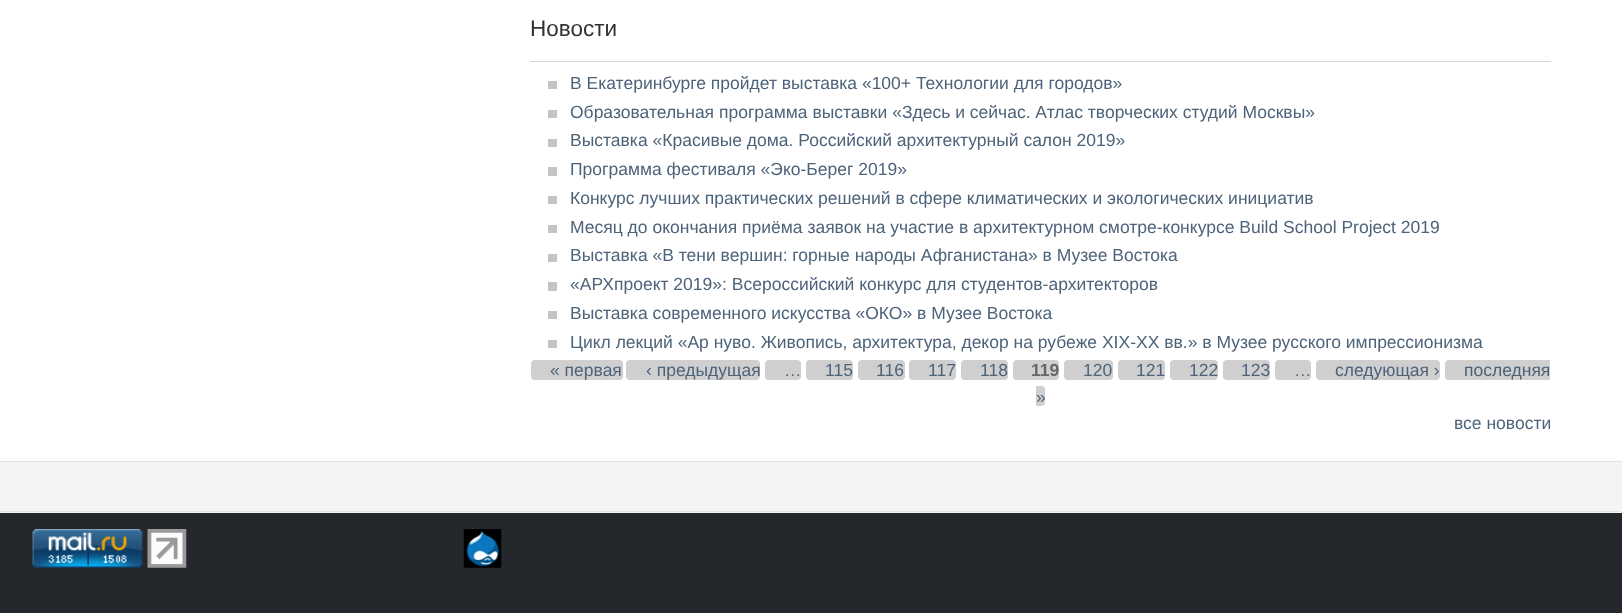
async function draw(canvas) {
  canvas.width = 1622;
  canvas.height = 613;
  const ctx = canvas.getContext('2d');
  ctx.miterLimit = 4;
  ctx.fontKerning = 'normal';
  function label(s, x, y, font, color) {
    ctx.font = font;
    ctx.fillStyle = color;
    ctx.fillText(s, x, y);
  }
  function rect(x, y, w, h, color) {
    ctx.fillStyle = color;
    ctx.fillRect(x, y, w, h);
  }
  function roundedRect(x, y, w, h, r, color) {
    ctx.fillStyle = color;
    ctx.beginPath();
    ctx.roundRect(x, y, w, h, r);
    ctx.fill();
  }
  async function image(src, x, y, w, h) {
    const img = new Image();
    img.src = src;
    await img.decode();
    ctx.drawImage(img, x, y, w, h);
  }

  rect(0, 0, 1622, 613, '#fff');
  rect(530, 61, 1021, 1, '#d3d7d9');
  label('Новости', 530, 36, '22.5px Liberation Sans', '#333');
  rect(548, 81, 9, 8, '#c2c4c5');
  label('В Екатеринбурге пройдет выставка «100+ Технологии для городов»', 570, 89, '17.5px Liberation Sans', '#4d637a');
  rect(548, 110, 9, 8, '#c2c4c5');
  label('Образовательная программа выставки «Здесь и сейчас. Атлас творческих студий Москвы»', 570, 118, '17.5px Liberation Sans', '#4d637a');
  rect(548, 139, 9, 8, '#c2c4c5');
  label('Выставка «Красивые дома. Российский архитектурный салон 2019»', 570, 146, '17.5px Liberation Sans', '#4d637a');
  rect(548, 167, 9, 9, '#c2c4c5');
  label('Программа фестиваля «Эко-Берег 2019»', 570, 175, '17.5px Liberation Sans', '#4d637a');
  rect(548, 196, 9, 8, '#c2c4c5');
  label('Конкурс лучших практических решений в сфере климатических и экологических инициатив', 570, 204, '17.5px Liberation Sans', '#4d637a');
  rect(548, 225, 9, 8, '#c2c4c5');
  label('Месяц до окончания приёма заявок на участие в архитектурном смотре-конкурсе Build School Project 2019', 570, 233, '17.5px Liberation Sans', '#4d637a');
  rect(548, 254, 9, 8, '#c2c4c5');
  label('Выставка «В тени вершин: горные народы Афганистана» в Музее Востока', 570, 261, '17.5px Liberation Sans', '#4d637a');
  rect(548, 282, 9, 9, '#c2c4c5');
  label('«АРХпроект 2019»: Всероссийский конкурс для студентов-архитекторов', 570, 290, '17.5px Liberation Sans', '#4d637a');
  rect(548, 311, 9, 8, '#c2c4c5');
  label('Выставка современного искусства «ОКО» в Музее Востока', 570, 319, '17.5px Liberation Sans', '#4d637a');
  rect(548, 340, 9, 8, '#c2c4c5');
  label('Цикл лекций «Ар нуво. Живопись, архитектура, декор на рубеже XIX-XX вв.» в Музее русского импрессионизма', 570, 348, '17.5px Liberation Sans', '#4d637a');
  roundedRect(531, 360, 92, 20, 4, '#cfcfcf');
  label('« первая', 550, 376, '17.5px Liberation Sans', '#4d637a');
  roundedRect(626, 360, 134, 20, 4, '#cfcfcf');
  label('‹ предыдущая', 646, 376, '17.5px Liberation Sans', '#4d637a');
  roundedRect(765, 360, 36, 20, 4, '#cfcfcf');
  label('…', 784, 376, '17.5px Liberation Sans', '#666');
  roundedRect(806, 360, 47, 20, 4, '#cfcfcf');
  label('115', 825, 376, '17.5px Liberation Sans', '#4d637a');
  roundedRect(858, 360, 47, 20, 4, '#cfcfcf');
  label('116', 876, 376, '17.5px Liberation Sans', '#4d637a');
  roundedRect(909, 360, 47, 20, 4, '#cfcfcf');
  label('117', 928, 376, '17.5px Liberation Sans', '#4d637a');
  roundedRect(961, 360, 47, 20, 4, '#cfcfcf');
  label('118', 980, 376, '17.5px Liberation Sans', '#4d637a');
  roundedRect(1013, 360, 46, 20, 4, '#cfcfcf');
  label('119', 1031, 376, 'bold 17.5px Liberation Sans', '#666');
  roundedRect(1064, 360, 49, 20, 4, '#cfcfcf');
  label('120', 1083, 376, '17.5px Liberation Sans', '#4d637a');
  roundedRect(1118, 360, 47, 20, 4, '#cfcfcf');
  label('121', 1136, 376, '17.5px Liberation Sans', '#4d637a');
  roundedRect(1170, 360, 48, 20, 4, '#cfcfcf');
  label('122', 1189, 376, '17.5px Liberation Sans', '#4d637a');
  roundedRect(1223, 360, 47, 20, 4, '#cfcfcf');
  label('123', 1241, 376, '17.5px Liberation Sans', '#4d637a');
  roundedRect(1275, 360, 36, 20, 4, '#cfcfcf');
  label('…', 1294, 376, '17.5px Liberation Sans', '#666');
  roundedRect(1316, 360, 124, 20, 4, '#cfcfcf');
  label('следующая ›', 1335, 376, '17.5px Liberation Sans', '#4d637a');
  ctx.fillStyle = '#cfcfcf';
  ctx.beginPath();
  ctx.roundRect(1445, 360, 105, 20, [4, 0, 0, 4]);
  ctx.fill();
  label('последняя', 1464, 376, '17.5px Liberation Sans', '#4d637a');
  ctx.fillStyle = '#cfcfcf';
  ctx.beginPath();
  ctx.roundRect(1036, 386, 9, 20, [0, 4, 4, 0]);
  ctx.fill();
  label('»', 1036, 403, '17.5px Liberation Sans', '#4d637a');
  label('все новости', 1454, 429, '17.5px Liberation Sans', '#4d637a');
  rect(0, 462, 1622, 51, '#f4f4f4');
  rect(0, 461, 1622, 1, '#e3e3e3');
  rect(0, 511, 1622, 1, '#e3e3e3');
  rect(0, 513, 1622, 100, '#24272c');
  await image('assets/img1.png', 32, 529, 111, 39);
  await image('assets/img2.png', 147, 529, 40, 39);
  await image('assets/img3.png', 463, 529, 39, 39);
}

draw(document.querySelector('canvas'));
